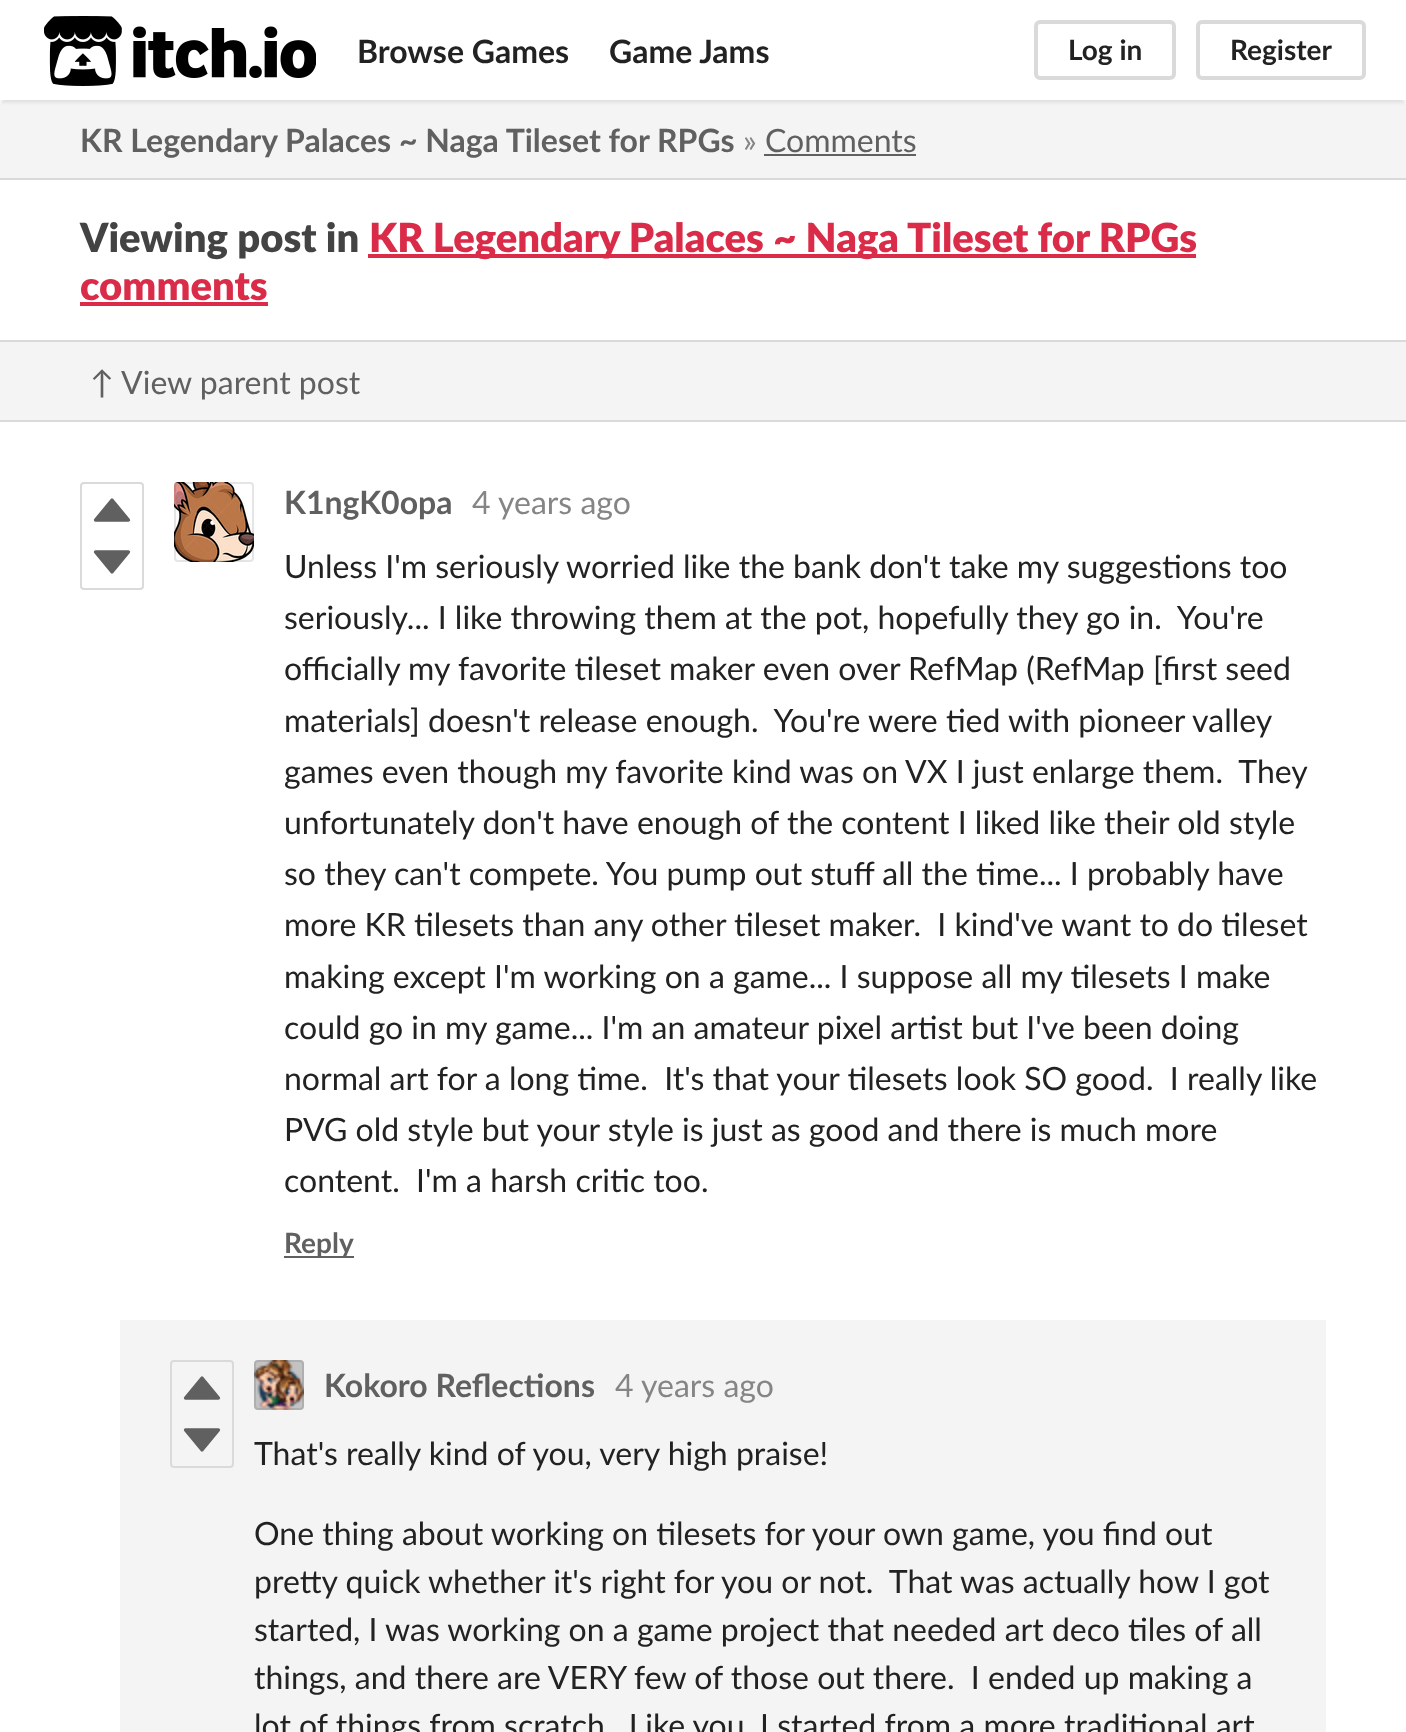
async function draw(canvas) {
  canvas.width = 1406;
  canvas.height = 1732;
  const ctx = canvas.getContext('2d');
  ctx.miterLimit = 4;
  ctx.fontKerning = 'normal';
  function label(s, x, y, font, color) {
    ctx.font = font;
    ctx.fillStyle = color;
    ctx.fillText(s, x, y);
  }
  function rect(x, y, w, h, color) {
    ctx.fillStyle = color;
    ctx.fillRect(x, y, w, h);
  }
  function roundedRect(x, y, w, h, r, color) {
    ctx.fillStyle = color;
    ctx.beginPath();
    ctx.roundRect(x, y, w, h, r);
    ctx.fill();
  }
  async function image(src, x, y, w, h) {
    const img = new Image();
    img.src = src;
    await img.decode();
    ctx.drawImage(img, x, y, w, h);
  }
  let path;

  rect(0, 0, 1406, 1732, '#fff');
  ctx.fillStyle = '#f4f4f4';
  ctx.beginPath();
  ctx.roundRect(0, 100, 1406, 80, [6, 6, 0, 0]);
  ctx.fill();
  ctx.fillStyle = '#0000001a';
  ctx.filter = 'blur(2px)';
  ctx.beginPath();
  ctx.rect(0, 2, 1406, 100);
  ctx.fill();
  ctx.filter = 'none';
  rect(0, 0, 1406, 100, '#fff');
  await image('assets/img1.png', 44, 16, 272, 70);
  label('Browse Games', 357, 63, 'bold 32px Lato', '#222');
  label('Game Jams', 609, 63, 'bold 32px Lato', '#222');
  ctx.beginPath();
  ctx.roundRect(1036, 22, 138, 56, 4);
  ctx.strokeStyle = '#dadada';
  ctx.lineWidth = 4;
  ctx.stroke();
  label('Log in', 1068, 60, 'bold 28px Lato', '#222');
  ctx.beginPath();
  ctx.roundRect(1198, 22, 166, 56, 4);
  ctx.stroke();
  label('Register', 1230, 60, 'bold 28px Lato', '#222');
  rect(0, 178, 1406, 2, '#dadada');
  label('KR Legendary Palaces ~ Naga Tileset for RPGs', 80, 152, 'bold 32px Lato', '#606060');
  label('»', 743, 152, '32px Lato', '#858585');
  label('Comments', 765, 152, '32px Lato', '#606060');
  rect(764, 154, 152, 2, '#606060');
  rect(0, 340, 1406, 2, '#dadada');
  label('Viewing post in', 80, 252, '900 40px Lato', '#434343');
  rect(368, 254, 828, 4, '#da2c49');
  label('KR Legendary Palaces ~ Naga Tileset for RPGs', 369, 252, '900 40px Lato', '#da2c49');
  label('comments', 80, 300, '900 40px Lato', '#da2c49');
  rect(80, 302, 188, 4, '#da2c49');
  rect(0, 342, 1406, 78, '#f4f4f4');
  rect(0, 420, 1406, 2, '#dadada');
  label('↑ View parent post', 90, 394, '32px Lato', '#606060');
  ctx.beginPath();
  ctx.roundRect(81, 483, 62, 106, 3);
  ctx.lineWidth = 2;
  ctx.stroke();
  path = new Path2D('M95.5 520L112 500L128.5 520Z');
  ctx.fill(path);
  ctx.strokeStyle = '#606060';
  ctx.lineWidth = 3.3;
  ctx.lineJoin = 'round';
  ctx.stroke(path);
  path = new Path2D('M95.5 552L112 572L128.5 552Z');
  ctx.fill(path);
  ctx.stroke(path);
  await image('assets/img2.png', 174, 482, 80, 80);
  ctx.beginPath();
  ctx.roundRect(175, 483, 78, 78, 3);
  ctx.strokeStyle = '#0000001a';
  ctx.lineWidth = 2;
  ctx.lineJoin = 'miter';
  ctx.stroke();
  label('K1ngK0opa', 284, 514, 'bold 32px Lato', '#606060');
  label('4 years ago', 472, 514, '32px Lato', '#858585');
  label('Unless I\'m seriously worried like the bank don\'t take my suggestions too', 284, 578, '32px Lato', '#222');
  label('seriously... I like throwing them at the pot, hopefully they go in.  You\'re', 284, 629, '32px Lato', '#222');
  label('officially my favorite tileset maker even over RefMap (RefMap [first seed', 284, 680, '32px Lato', '#222');
  label('materials] doesn\'t release enough.  You\'re were tied with pioneer valley', 284, 732, '32px Lato', '#222');
  label('games even though my favorite kind was on VX I just enlarge them.  They', 284, 783, '32px Lato', '#222');
  label('unfortunately don\'t have enough of the content I liked like their old style', 284, 834, '32px Lato', '#222');
  label('so they can\'t compete. You pump out stuff all the time... I probably have', 284, 885, '32px Lato', '#222');
  label('more KR tilesets than any other tileset maker.  I kind\'ve want to do tileset', 284, 936, '32px Lato', '#222');
  label('making except I\'m working on a game... I suppose all my tilesets I make', 284, 988, '32px Lato', '#222');
  label('could go in my game... I\'m an amateur pixel artist but I\'ve been doing', 284, 1039, '32px Lato', '#222');
  label('normal art for a long time.  It\'s that your tilesets look SO good.  I really like', 284, 1090, '32px Lato', '#222');
  label('PVG old style but your style is just as good and there is much more', 284, 1141, '32px Lato', '#222');
  label('content.  I\'m a harsh critic too.', 284, 1192, '32px Lato', '#222');
  rect(284, 1256, 70, 2, '#606060');
  label('Reply', 284, 1253, 'bold 28px Lato', '#606060');
  rect(120, 1320, 1206, 412, '#f4f4f4');
  ctx.beginPath();
  ctx.roundRect(171, 1361, 62, 106, 3);
  ctx.strokeStyle = '#dadada';
  ctx.stroke();
  ctx.fillStyle = '#606060';
  path = new Path2D('M185.5 1398L202 1378L218.5 1398Z');
  ctx.fill(path);
  ctx.strokeStyle = '#606060';
  ctx.lineWidth = 3.3;
  ctx.lineJoin = 'round';
  ctx.stroke(path);
  path = new Path2D('M185.5 1430L202 1450L218.5 1430Z');
  ctx.fill(path);
  ctx.stroke(path);
  roundedRect(254, 1360, 50, 50, 4, '#c3c3c3');
  await image('assets/img3.png', 254, 1360, 50, 50);
  ctx.beginPath();
  ctx.roundRect(255, 1361, 48, 48, 3);
  ctx.strokeStyle = '#0000001a';
  ctx.lineWidth = 2;
  ctx.lineJoin = 'miter';
  ctx.stroke();
  label('Kokoro Reflections', 324, 1397, 'bold 32px Lato', '#606060');
  label('4 years ago', 615, 1397, '32px Lato', '#858585');
  label('That\'s really kind of you, very high praise!', 254, 1465, '32px Lato', '#222');
  label('One thing about working on tilesets for your own game, you find out', 254, 1545, '32px Lato', '#222');
  label('pretty quick whether it\'s right for you or not.  That was actually how I got', 254, 1593, '32px Lato', '#222');
  label('started, I was working on a game project that needed art deco tiles of all', 254, 1641, '32px Lato', '#222');
  label('things, and there are VERY few of those out there.  I ended up making a', 254, 1689, '32px Lato', '#222');
  label('lot of things from scratch.  Like you, I started from a more traditional art', 254, 1737, '32px Lato', '#222');
}

draw(document.querySelector('canvas'));
